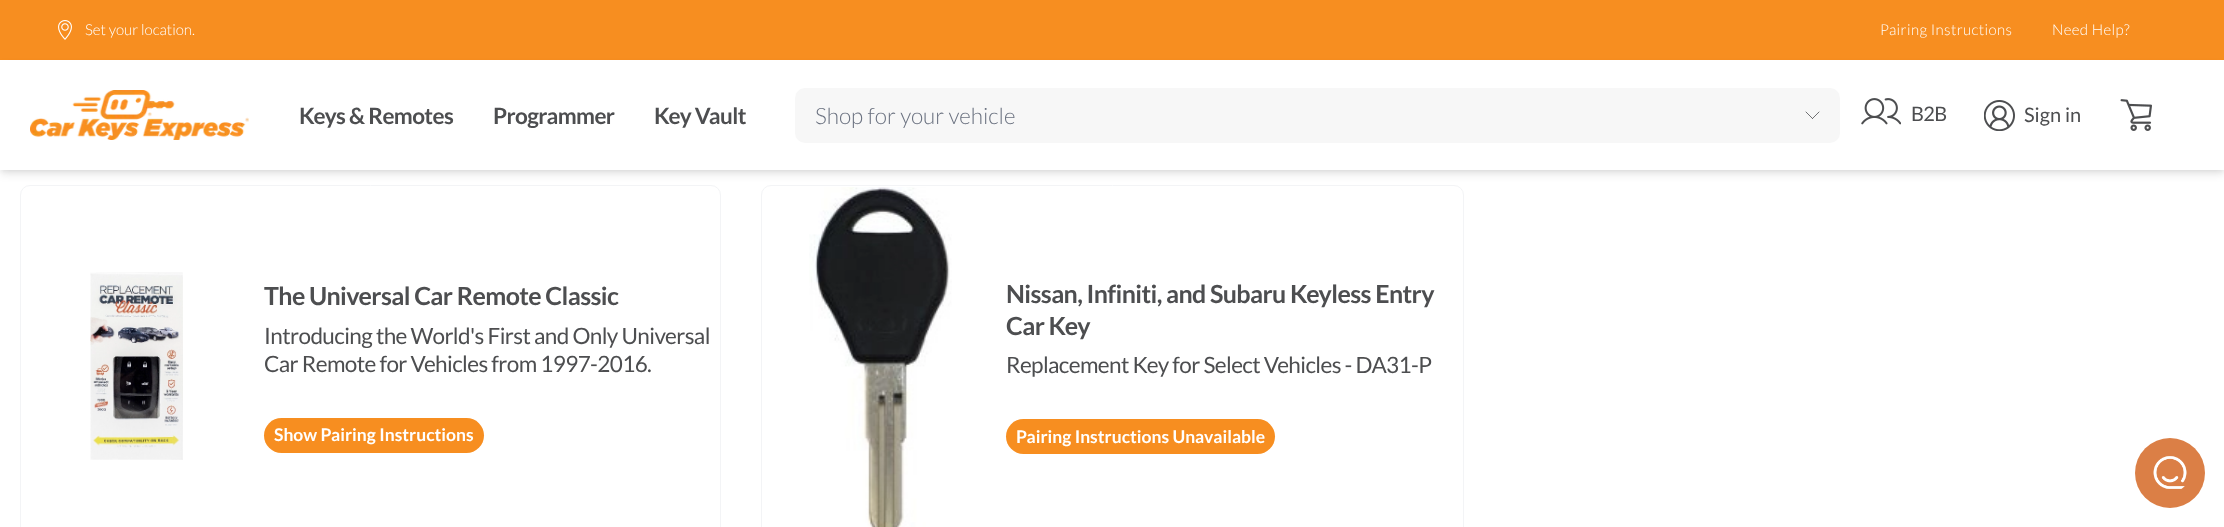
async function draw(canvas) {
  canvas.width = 2224;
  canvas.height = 527;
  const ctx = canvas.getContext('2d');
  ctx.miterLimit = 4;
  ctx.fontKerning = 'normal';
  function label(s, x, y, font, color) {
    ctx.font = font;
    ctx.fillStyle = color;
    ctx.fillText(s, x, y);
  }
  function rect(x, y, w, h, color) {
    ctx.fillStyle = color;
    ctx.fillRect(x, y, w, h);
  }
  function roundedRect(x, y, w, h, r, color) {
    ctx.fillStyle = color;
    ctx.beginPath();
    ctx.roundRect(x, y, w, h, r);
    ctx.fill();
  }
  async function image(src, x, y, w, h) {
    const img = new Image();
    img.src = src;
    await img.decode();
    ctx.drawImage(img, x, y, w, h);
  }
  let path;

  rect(0, 0, 2224, 527, '#fff');
  rect(0, 0, 2224, 60, '#f78e20');
  await image('assets/img1.png', 58, 20, 14, 20);
  label('Set your location.', 85, 35, '300 15px Lato', '#fff');
  ctx.letterSpacing = '0.4px';
  label('Pairing Instructions', 1880, 35, '300 15px Lato', '#fff');
  label('Need Help?', 2052, 35, '300 15px Lato', '#fff');
  ctx.fillStyle = '#0000000f';
  ctx.filter = 'blur(2.5px)';
  ctx.beginPath();
  ctx.rect(1, 64, 2223, 107);
  ctx.fill();
  ctx.filter = 'none';
  ctx.beginPath();
  ctx.roundRect(20.5, 185.5, 700, 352, 9.5);
  ctx.strokeStyle = '#f3f4f6';
  ctx.stroke();
  ctx.beginPath();
  ctx.roundRect(761.5, 185.5, 702, 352, 9.5);
  ctx.stroke();
  ctx.fillStyle = '#0000001a';
  ctx.filter = 'blur(4px)';
  ctx.beginPath();
  ctx.rect(1, 66, 2223, 108);
  ctx.fill();
  ctx.filter = 'none';
  rect(0, 60, 2224, 110, '#fff');
  await image('assets/img2.png', 30, 90, 219, 50);
  ctx.letterSpacing = '-0.6px';
  label('Keys & Remotes', 299, 124, 'bold 22.5px Lato', '#4d4e50');
  label('Programmer', 493, 124, 'bold 22.5px Lato', '#4d4e50');
  label('Key Vault', 654, 124, 'bold 22.5px Lato', '#4d4e50');
  roundedRect(795, 88, 1045, 55, 10, '#f7f7f7');
  ctx.letterSpacing = '0px';
  label('Shop for your vehicle', 815, 124, '300 22.5px Lato', '#6b7280');
  path = new Path2D('M1812.5 118.5L1806 112M1812.5 118.5L1819 112');
  ctx.strokeStyle = '#4d4e50';
  ctx.lineWidth = 0.8;
  ctx.lineCap = 'round';
  ctx.lineJoin = 'round';
  ctx.stroke(path);
  await image('assets/img3.png', 1861, 98, 40, 27);
  ctx.letterSpacing = '-0.6px';
  label('B2B', 1911, 121, '20px Lato', '#4d4e50');
  await image('assets/img4.png', 1984, 100, 31, 31);
  ctx.letterSpacing = '0px';
  label('Sign in', 2024, 122, '20px Lato', '#4d4e50');
  await image('assets/img5.png', 2120, 99, 32, 32);
  await image('assets/img6.png', 90, 272, 93, 188);
  ctx.letterSpacing = '-0.6px';
  label('The Universal Car Remote Classic', 264, 305, 'bold 25px Lato', '#4d4e50');
  label('Introducing the World\'s First and Only Universal', 264, 344, '22.5px Lato', '#4d4e50');
  label('Car Remote for Vehicles from 1997-2016.', 264, 372, '22.5px Lato', '#4d4e50');
  roundedRect(264, 418, 220, 35, 17.5, '#f78e20');
  ctx.letterSpacing = '0px';
  label('Show Pairing Instructions', 274, 441, 'bold 17.5px Lato', '#fff');
  await image('assets/img7.png', 809, 187, 143, 340);
  ctx.letterSpacing = '-0.6px';
  label('Nissan, Infiniti, and Subaru Keyless Entry', 1006, 303, 'bold 25px Lato', '#4d4e50');
  label('Car Key', 1006, 335, 'bold 25px Lato', '#4d4e50');
  label('Replacement Key for Select Vehicles - DA31-P', 1006, 373, '22.5px Lato', '#4d4e50');
  roundedRect(1006, 419, 269, 35, 17.5, '#f78e20');
  ctx.letterSpacing = '0px';
  label('Pairing Instructions Unavailable', 1016, 443, 'bold 17.5px Lato', '#fff');
  ctx.fillStyle = '#db7f46';
  ctx.beginPath();
  ctx.arc(2170, 473, 35, 0, 2 * Math.PI);
  ctx.fill();
  await image('assets/img8.png', 2153, 456, 34, 33);
}

draw(document.querySelector('canvas'));
